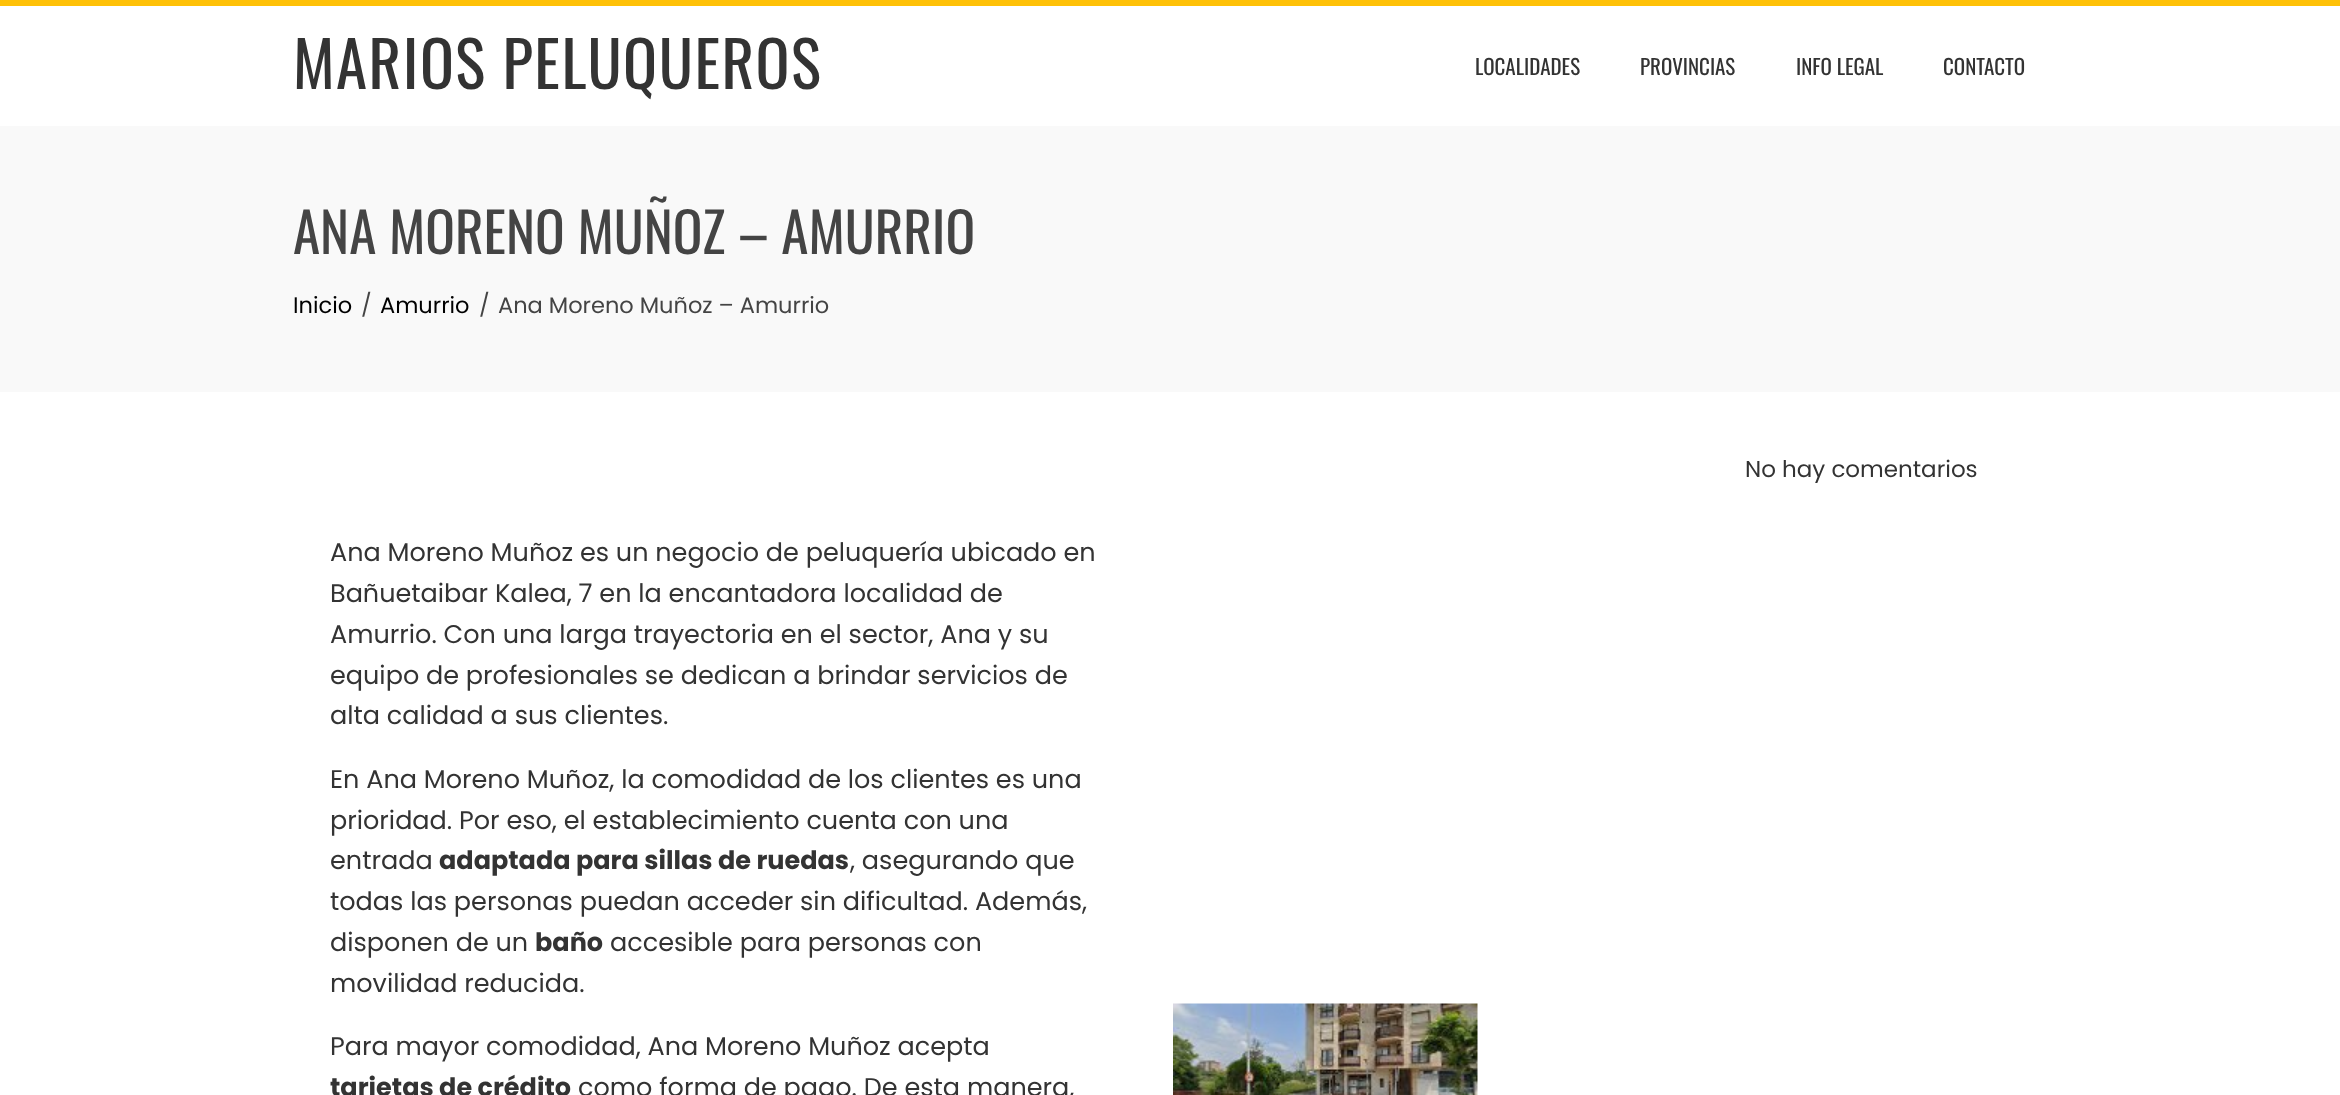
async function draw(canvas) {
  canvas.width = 2340;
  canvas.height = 1095;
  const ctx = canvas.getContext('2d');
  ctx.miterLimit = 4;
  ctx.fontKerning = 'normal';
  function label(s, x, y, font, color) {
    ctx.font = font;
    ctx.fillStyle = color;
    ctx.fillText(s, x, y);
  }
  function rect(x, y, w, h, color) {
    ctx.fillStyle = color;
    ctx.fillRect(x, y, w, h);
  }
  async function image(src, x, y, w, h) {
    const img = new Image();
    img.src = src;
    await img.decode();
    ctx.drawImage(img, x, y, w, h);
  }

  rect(0, 0, 2340, 1095, '#fff');
  rect(0, 0, 2340, 6, '#ffc107');
  ctx.letterSpacing = '1.5px';
  label('MARIOS PELUQUEROS', 293, 89, '63px Oswald', '#333');
  ctx.letterSpacing = '0px';
  label('LOCALIDADES', 1475, 75, '21px Oswald', '#333');
  label('PROVINCIAS', 1640, 75, '21px Oswald', '#333');
  label('INFO LEGAL', 1796, 75, '21px Oswald', '#333');
  label('CONTACTO', 1943, 75, '21px Oswald', '#333');
  rect(0, 126, 2340, 266, '#f9f9f9');
  label('ANA MORENO MUÑOZ – AMURRIO', 293, 254, '55.1px Oswald', '#444');
  label('Inicio', 293, 313, '22.5px Poppins', '#000');
  label('/', 361, 313, '22.5px Poppins', '#444');
  label('Amurrio', 380, 313, '22.5px Poppins', '#000');
  label('/', 479, 313, '22.5px Poppins', '#444');
  label('Ana Moreno Muñoz – Amurrio', 498, 313, '22.5px Poppins', '#444');
  label('No hay comentarios', 1745, 477, '23px Poppins', '#333');
  label('Ana Moreno Muñoz es un negocio de peluquería ubicado en', 330, 561, '25.5px Poppins', '#333');
  label('Bañuetaibar Kalea, 7 en la encantadora localidad de', 330, 602, '25.5px Poppins', '#333');
  label('Amurrio. Con una larga trayectoria en el sector, Ana y su', 330, 643, '25.5px Poppins', '#333');
  label('equipo de profesionales se dedican a brindar servicios de', 330, 684, '25.5px Poppins', '#333');
  label('alta calidad a sus clientes.', 330, 724, '25.5px Poppins', '#333');
  label('En Ana Moreno Muñoz, la comodidad de los clientes es una', 330, 788, '25.5px Poppins', '#333');
  label('prioridad. Por eso, el establecimiento cuenta con una', 330, 829, '25.5px Poppins', '#333');
  label('entrada', 330, 869, '25.5px Poppins', '#333');
  label('adaptada para sillas de ruedas', 439, 869, 'bold 25.5px Poppins', '#333');
  label(', asegurando que', 850, 869, '25.5px Poppins', '#333');
  label('todas las personas puedan acceder sin dificultad. Además,', 330, 910, '25.5px Poppins', '#333');
  label('disponen de un', 330, 951, '25.5px Poppins', '#333');
  label('baño', 535, 951, 'bold 25.5px Poppins', '#333');
  label('accesible para personas con', 610, 951, '25.5px Poppins', '#333');
  label('movilidad reducida.', 330, 992, '25.5px Poppins', '#333');
  label('Para mayor comodidad, Ana Moreno Muñoz acepta', 330, 1055, '25.5px Poppins', '#333');
  label('tarjetas de crédito', 330, 1096, 'bold 25.5px Poppins', '#333');
  label('como forma de pago. De esta manera,', 578, 1096, '25.5px Poppins', '#333');
  await image('assets/img1.png', 1173, 1003, 305, 92);
}

draw(document.querySelector('canvas'));
